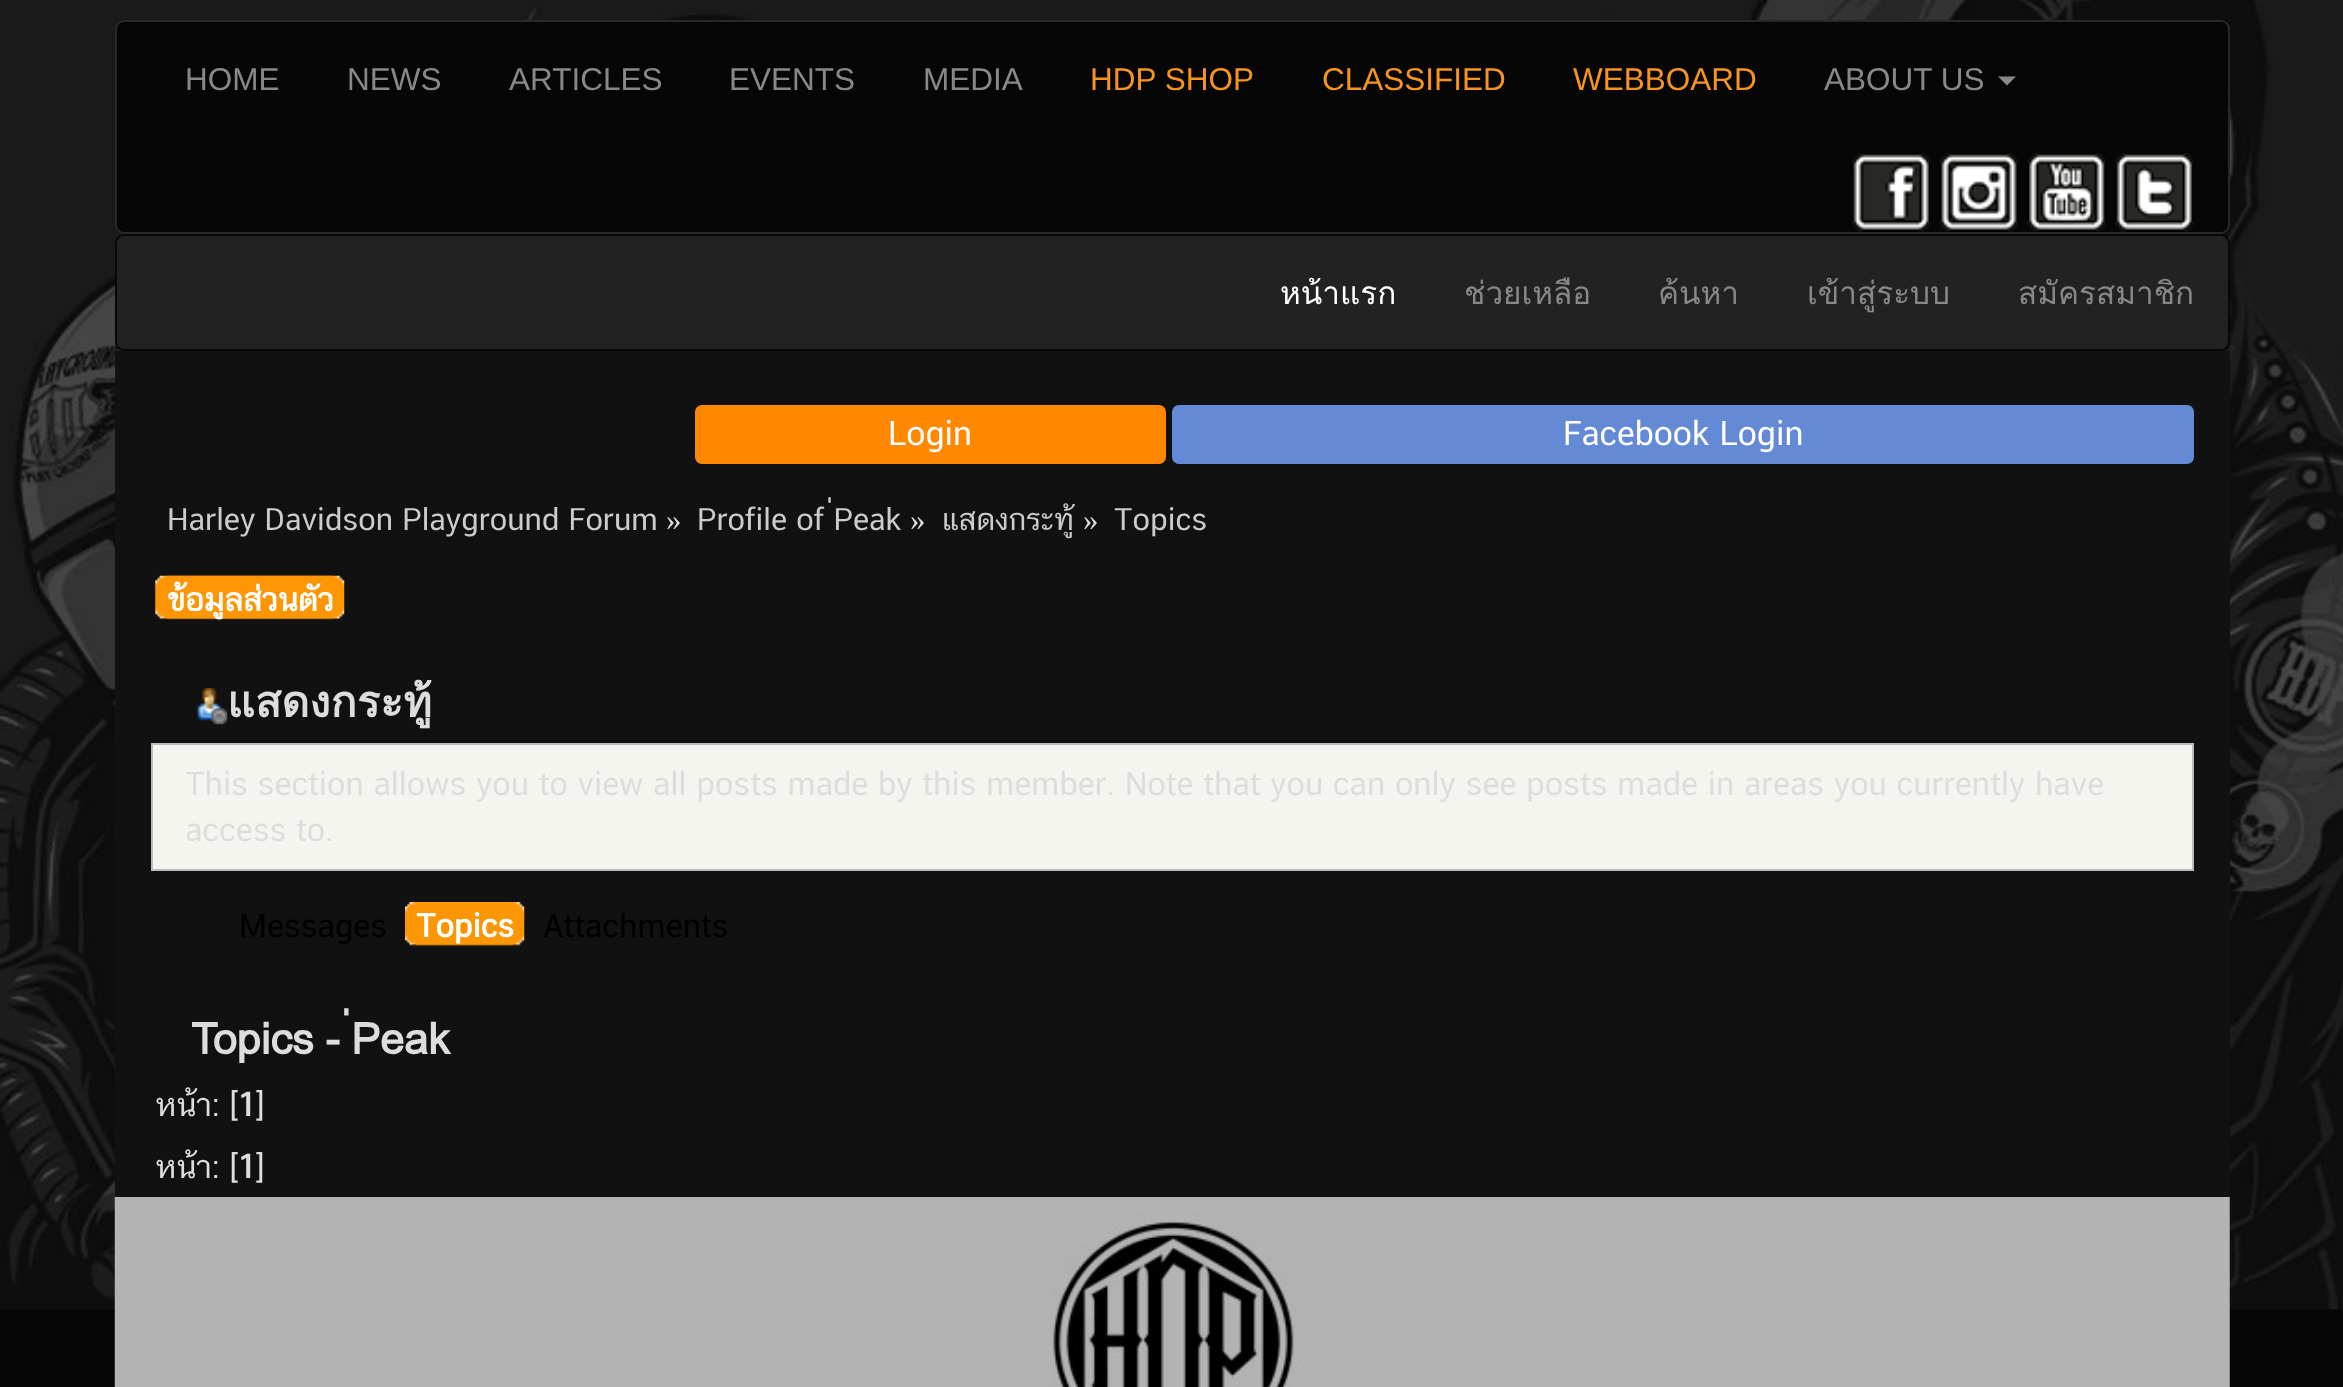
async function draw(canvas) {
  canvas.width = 2343;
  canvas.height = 1387;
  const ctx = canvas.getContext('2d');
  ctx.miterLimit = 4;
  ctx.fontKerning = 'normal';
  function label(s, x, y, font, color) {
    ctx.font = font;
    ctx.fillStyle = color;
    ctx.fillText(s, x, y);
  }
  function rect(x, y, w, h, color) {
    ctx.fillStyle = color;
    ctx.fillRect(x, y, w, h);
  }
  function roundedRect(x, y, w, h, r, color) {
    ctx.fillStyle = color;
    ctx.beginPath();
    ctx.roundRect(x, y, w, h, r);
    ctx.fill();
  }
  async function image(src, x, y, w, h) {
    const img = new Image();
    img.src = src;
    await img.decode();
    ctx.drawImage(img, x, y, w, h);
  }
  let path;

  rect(0, 0, 2343, 1387, '#060606');
  await image('assets/img1.png', 0, 0, 2343, 1310);
  ctx.beginPath();
  ctx.roundRect(116, 21, 2113, 212, 8);
  ctx.fill();
  ctx.strokeStyle = '#282828';
  ctx.lineWidth = 2;
  ctx.stroke();
  label('HOME', 185, 90, '31.5px Liberation Sans', '#888');
  label('NEWS', 347, 90, '31.5px Liberation Sans', '#888');
  label('ARTICLES', 509, 90, '31.5px Liberation Sans', '#888');
  label('EVENTS', 729, 90, '31.5px Liberation Sans', '#888');
  label('MEDIA', 923, 90, '31.5px Liberation Sans', '#888');
  label('HDP SHOP', 1090, 90, '31.5px Liberation Sans', '#f7941d');
  label('CLASSIFIED', 1322, 90, '31.5px Liberation Sans', '#f7941d');
  label('WEBBOARD', 1573, 90, '31.5px Liberation Sans', '#f7941d');
  label('ABOUT US', 1824, 90, '31.5px Liberation Sans', '#888');
  path = new Path2D('M1998 76.5H2016L2007 85.5Z');
  ctx.fill(path);
  await image('assets/img2.png', 1851, 152, 80, 80);
  await image('assets/img3.png', 1939, 152, 80, 80);
  await image('assets/img4.png', 2027, 153, 79, 79);
  await image('assets/img5.png', 2115, 153, 79, 79);
  ctx.fillStyle = '#222';
  ctx.beginPath();
  ctx.roundRect(116, 235, 2113, 115, 8);
  ctx.fill();
  ctx.strokeStyle = '#080808';
  ctx.stroke();
  label('หน้าแรก', 1280, 304, '31.5px Loma', '#fff');
  label('ช่วยเหลือ', 1464, 304, '31.5px Loma', '#888');
  label('ค้นหา', 1658, 304, '31.5px Loma', '#888');
  label('เข้าสู่ระบบ', 1807, 304, '31.5px Loma', '#888');
  label('สมัครสมาชิก', 2018, 304, '31.5px Loma', '#888');
  await image('assets/img11.png', 114, 1196, 2116, 191);
  rect(115, 351, 2115, 846, '#111');
  ctx.fillStyle = '#f80';
  ctx.beginPath();
  ctx.roundRect(696, 406, 469, 57, 6);
  ctx.fill();
  ctx.strokeStyle = '#f80';
  ctx.stroke();
  label('Login', 888, 445, '33.75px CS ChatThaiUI', '#fff');
  roundedRect(1172, 405, 1022, 59, 7, '#648ad6');
  label('Facebook Login', 1563, 445, '33.75px CS ChatThaiUI', '#fff');
  label('Harley Davidson Playground Forum', 167, 530, '30.75px CS ChatThaiUI', '#ccc');
  label('»', 666, 530, '30.75px Liberation Serif', '#ddd');
  label('Profile of ่Peak', 697, 530, '30.75px CS ChatThaiUI', '#ccc');
  label('»', 910, 530, '30.75px Liberation Serif', '#ddd');
  label('แสดงกระทู้', 941, 530, '30.75px CS ChatThaiUI', '#ccc');
  label('»', 1083, 530, '30.75px Liberation Serif', '#ddd');
  label('Topics', 1114, 530, '30.75px CS ChatThaiUI', '#ccc');
  await image('assets/img6.png', 166, 575, 179, 45);
  await image('assets/img7.png', 155, 575, 178, 45);
  label('ข้อมูลส่วนตัว', 167, 611, 'bold 32.4px CS ChatThaiUI', '#fff');
  await image('assets/img8.png', 197, 688, 31, 37);
  label('แสดงกระทู้', 227, 717, 'bold 43.25px Loma', '#ddd');
  ctx.fillStyle = '#f5f5f0';
  ctx.beginPath();
  ctx.rect(152, 744, 2041, 126);
  ctx.fill();
  ctx.strokeStyle = '#bbb';
  ctx.stroke();
  label('This section allows you to view all posts made by this member. Note that you can only see posts made in areas you currently have', 185, 795, '32.4px CS ChatThaiUI', '#ddd');
  label('access to.', 185, 841, '32.4px CS ChatThaiUI', '#ddd');
  label('Messages', 239, 937, '32.4px CS ChatThaiUI', '#000');
  await image('assets/img9.png', 416, 902, 109, 44);
  await image('assets/img10.png', 405, 902, 108, 44);
  label('Topics', 416, 937, 'bold 32.4px CS ChatThaiUI', '#fff');
  label('Attachments', 543, 937, '32.4px CS ChatThaiUI', '#000');
  ctx.wordSpacing = '-3px';
  label('Topics - ่Peak', 191, 1054, 'bold 43.25px Loma', '#ddd');
  ctx.wordSpacing = '0px';
  label('หน้า: [', 155, 1116, '32.4px CS ChatThaiUI', '#ddd');
  label('1', 238, 1116, 'bold 32.4px CS ChatThaiUI', '#ddd');
  label(']', 256, 1116, '32.4px CS ChatThaiUI', '#ddd');
  label('หน้า: [', 155, 1178, '32.4px CS ChatThaiUI', '#ddd');
  label('1', 238, 1178, 'bold 32.4px CS ChatThaiUI', '#ddd');
  label(']', 256, 1178, '32.4px CS ChatThaiUI', '#ddd');
}

draw(document.querySelector('canvas'));
